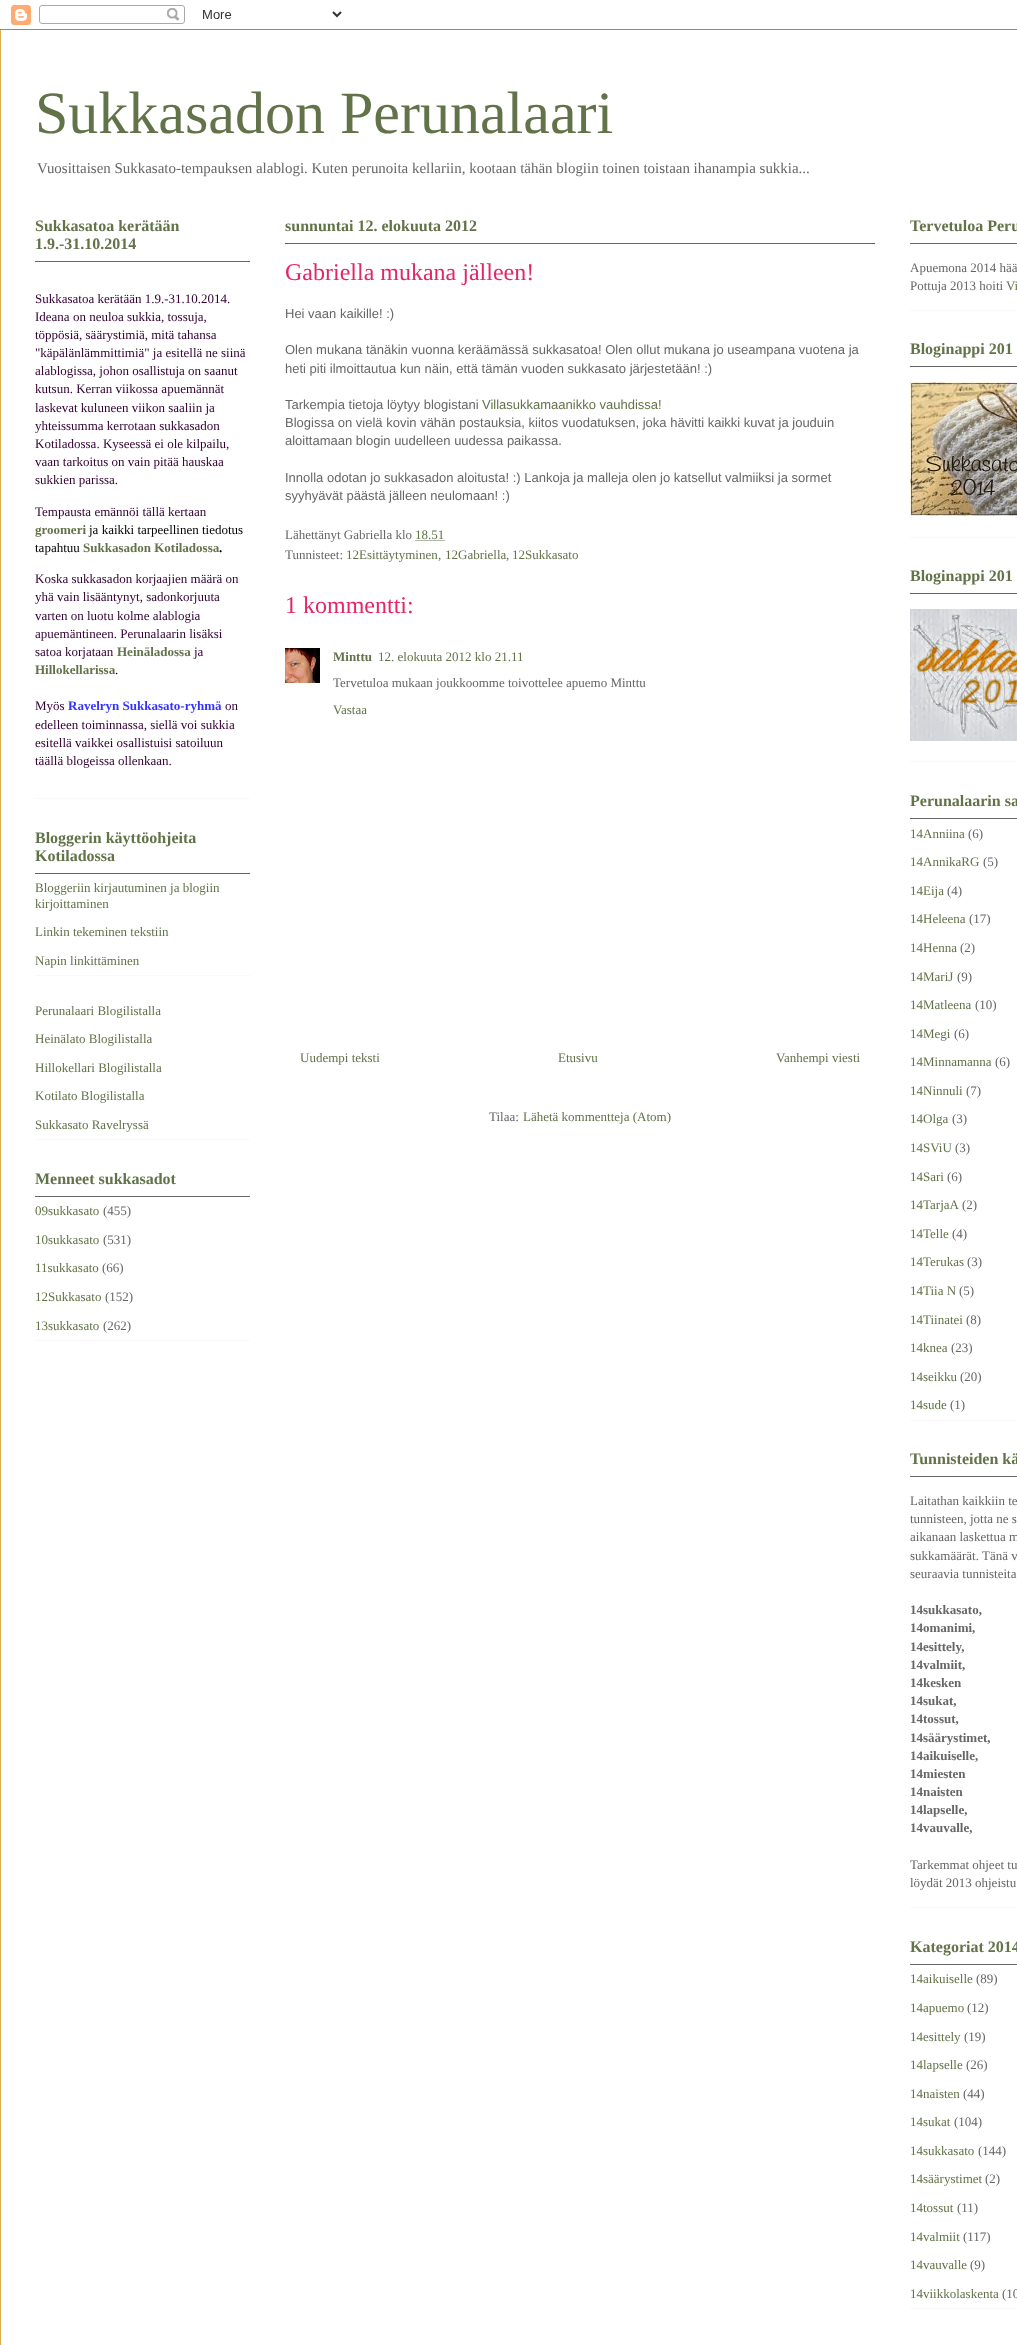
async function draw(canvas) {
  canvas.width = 1017;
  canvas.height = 2345;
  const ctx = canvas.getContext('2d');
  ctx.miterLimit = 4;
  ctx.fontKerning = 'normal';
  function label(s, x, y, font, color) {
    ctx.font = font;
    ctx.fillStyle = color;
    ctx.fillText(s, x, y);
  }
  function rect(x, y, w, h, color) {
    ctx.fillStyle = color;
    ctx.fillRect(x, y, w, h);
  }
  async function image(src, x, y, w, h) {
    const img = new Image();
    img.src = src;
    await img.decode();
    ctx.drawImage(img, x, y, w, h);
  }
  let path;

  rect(0, 0, 1017, 2345, '#fff');
  await image('assets/img1.png', 0, 0, 1017, 29);
  await image('assets/img2.png', 0, 5, 1017, 25);
  rect(0, 30, 1, 2315, '#d8af4c');
  label('Sukkasadon Perunalaari', 35, 133, '60px Liberation Serif', '#627349');
  label('Vuosittaisen Sukkasato-tempauksen alablogi. Kuten perunoita kellariin, kootaan tähän blogiin toinen toistaan ihanampia sukkia...', 37, 173, '14.95px Liberation Serif', '#666');
  rect(35, 798, 215, 1, '#f9f9f9');
  rect(35, 261, 215, 1, '#666');
  label('Sukkasatoa kerätään', 35, 231, 'bold 16px Liberation Serif', '#627349');
  label('1.9.-31.10.2014', 35, 249, 'bold 16px Liberation Serif', '#627349');
  label('Sukkasatoa kerätään 1.9.-31.10.2014.', 35, 303, '13px Liberation Serif', '#303');
  label('Ideana on neuloa sukkia, tossuja,', 35, 321, '13px Liberation Serif', '#303');
  label('töppösiä, säärystimiä, mitä tahansa', 35, 339, '13px Liberation Serif', '#303');
  label('"käpälänlämmittimiä" ja esitellä ne siinä', 35, 357, '13px Liberation Serif', '#303');
  label('alablogissa, johon osallistuja on saanut', 35, 375, '13px Liberation Serif', '#303');
  label('kutsun. Kerran viikossa apuemännät', 35, 393, '13px Liberation Serif', '#303');
  label('laskevat kuluneen viikon saaliin ja', 35, 412, '13px Liberation Serif', '#303');
  label('yhteissumma kerrotaan sukkasadon', 35, 430, '13px Liberation Serif', '#303');
  label('Kotiladossa. Kyseessä ei ole kilpailu,', 35, 448, '13px Liberation Serif', '#303');
  label('vaan tarkoitus on vain pitää hauskaa', 35, 466, '13px Liberation Serif', '#303');
  label('sukkien parissa.', 35, 484, '13px Liberation Serif', '#303');
  label('Tempausta emännöi tällä kertaan', 35, 516, '13px Liberation Serif', '#303');
  label('groomeri', 35, 534, 'bold 13px Liberation Serif', '#627349');
  label('ja kaikki tarpeellinen tiedotus', 89, 534, '13px Liberation Serif', '#000');
  label('tapahtuu', 35, 552, '13px Liberation Serif', '#000');
  label('Sukkasadon Kotiladossa', 83, 552, 'bold 13px Liberation Serif', '#627349');
  label('.', 219, 552, 'bold 13px Liberation Serif', '#000');
  label('Koska sukkasadon korjaajien määrä on', 35, 583, '13px Liberation Serif', '#303');
  label('yhä vain lisääntynyt, sadonkorjuuta', 35, 601, '13px Liberation Serif', '#303');
  label('varten on luotu kolme alablogia', 35, 620, '13px Liberation Serif', '#303');
  label('apuemäntineen. Perunalaarin lisäksi', 35, 638, '13px Liberation Serif', '#303');
  label('satoa korjataan', 35, 656, '13px Liberation Serif', '#303');
  label('Heinäladossa', 117, 656, 'bold 13px Liberation Serif', '#627349');
  label('ja', 194, 656, '13px Liberation Serif', '#303');
  label('Hillokellarissa', 35, 674, 'bold 13px Liberation Serif', '#627349');
  label('.', 115, 674, '13px Liberation Serif', '#000');
  label('Myös', 35, 710, '13px Liberation Serif', '#303');
  label('Ravelryn Sukkasato-ryhmä', 68, 710, 'bold 13px Liberation Serif', '#33f');
  label('on', 225, 710, '13px Liberation Serif', '#303');
  label('edelleen toiminnassa, siellä voi sukkia', 35, 729, '13px Liberation Serif', '#303');
  label('esitellä vaikkei osallistuisi satoiluun', 35, 747, '13px Liberation Serif', '#303');
  label('täällä blogeissa ollenkaan.', 35, 765, '13px Liberation Serif', '#303');
  rect(35, 975, 215, 1, '#f9f9f9');
  rect(35, 873, 215, 1, '#666');
  label('Bloggerin käyttöohjeita', 35, 843, 'bold 16px Liberation Serif', '#627349');
  label('Kotiladossa', 35, 861, 'bold 16px Liberation Serif', '#627349');
  label('Bloggeriin kirjautuminen ja blogiin', 35, 892, '13px Liberation Serif', '#627349');
  label('kirjoittaminen', 35, 908, '13px Liberation Serif', '#627349');
  label('Linkin tekeminen tekstiin', 35, 936, '13px Liberation Serif', '#627349');
  label('Napin linkittäminen', 35, 965, '13px Liberation Serif', '#627349');
  rect(35, 1139, 215, 1, '#f9f9f9');
  label('Perunalaari Blogilistalla', 35, 1015, '13px Liberation Serif', '#627349');
  label('Heinälato Blogilistalla', 35, 1043, '13px Liberation Serif', '#627349');
  label('Hillokellari Blogilistalla', 35, 1072, '13px Liberation Serif', '#627349');
  label('Kotilato Blogilistalla', 35, 1100, '13px Liberation Serif', '#627349');
  label('Sukkasato Ravelryssä', 35, 1129, '13px Liberation Serif', '#627349');
  rect(35, 1340, 215, 1, '#f9f9f9');
  rect(35, 1196, 215, 1, '#666');
  label('Menneet sukkasadot', 35, 1184, 'bold 16px Liberation Serif', '#627349');
  label('09sukkasato', 35, 1215, '13px Liberation Serif', '#627349');
  label('(455)', 103, 1215, '13px Liberation Serif', '#666');
  label('10sukkasato', 35, 1244, '13px Liberation Serif', '#627349');
  label('(531)', 103, 1244, '13px Liberation Serif', '#666');
  label('11sukkasato', 35, 1272, '13px Liberation Serif', '#627349');
  label('(66)', 102, 1272, '13px Liberation Serif', '#666');
  label('12Sukkasato', 35, 1301, '13px Liberation Serif', '#627349');
  label('(152)', 105, 1301, '13px Liberation Serif', '#666');
  label('13sukkasato', 35, 1330, '13px Liberation Serif', '#627349');
  label('(262)', 103, 1330, '13px Liberation Serif', '#666');
  rect(285, 243, 590, 1, '#666');
  label('sunnuntai 12. elokuuta 2012', 285, 231, 'bold 16px Liberation Serif', '#627349');
  label('Gabriella mukana jälleen!', 285, 280, '24px Liberation Serif', '#e32766');
  label('Hei vaan kaikille! :)', 285, 318, '13px Liberation Sans', '#666');
  label('Olen mukana tänäkin vuonna keräämässä sukkasatoa! Olen ollut mukana jo useampana vuotena ja', 285, 354, '13px Liberation Sans', '#666');
  label('heti piti ilmoittautua kun näin, että tämän vuoden sukkasato järjestetään! :)', 285, 373, '13px Liberation Sans', '#666');
  label('Tarkempia tietoja löytyy blogistani', 285, 409, '13px Liberation Sans', '#666');
  label('Villasukkamaanikko vauhdissa!', 482, 409, '13px Liberation Sans', '#627349');
  label('Blogissa on vielä kovin vähän postauksia, kiitos vuodatuksen, joka hävitti kaikki kuvat ja jouduin', 285, 427, '13px Liberation Sans', '#666');
  label('aloittamaan blogin uudelleen uudessa paikassa.', 285, 445, '13px Liberation Sans', '#666');
  label('Innolla odotan jo sukkasadon aloitusta! :) Lankoja ja malleja olen jo katsellut valmiiksi ja sormet', 285, 482, '13px Liberation Sans', '#666');
  label('syyhyävät päästä jälleen neulomaan! :)', 285, 500, '13px Liberation Sans', '#666');
  label('Lähettänyt Gabriella klo', 285, 539, '13px Liberation Serif', '#666');
  label('18.51', 415, 539, '13px Liberation Serif', '#627349');
  path = new Path2D('M415.5 540.5H444.5');
  ctx.strokeStyle = '#627349';
  ctx.setLineDash([1, 1]);
  ctx.stroke(path);
  label('Tunnisteet:', 285, 559, '13px Liberation Serif', '#666');
  label('12Esittäytyminen', 346, 559, '13px Liberation Serif', '#627349');
  label(',', 438, 559, '13px Liberation Serif', '#666');
  label('12Gabriella', 445, 559, '13px Liberation Serif', '#627349');
  label(',', 506, 559, '13px Liberation Serif', '#666');
  label('12Sukkasato', 512, 559, '13px Liberation Serif', '#627349');
  label('1 kommentti:', 285, 613, '24px Liberation Serif', '#e32766');
  await image('assets/img3.png', 285, 648, 35, 35);
  label('Minttu', 333, 661, 'bold 13px Liberation Serif', '#627349');
  label('12. elokuuta 2012 klo 21.11', 378, 661, '13px Liberation Serif', '#627349');
  label('Tervetuloa mukaan joukkoomme toivottelee apuemo Minttu', 333, 687, '13px Liberation Serif', '#666');
  label('Vastaa', 333, 714, '13px Liberation Serif', '#627349');
  label('Uudempi teksti', 300, 1062, '13px Liberation Serif', '#627349');
  label('Etusivu', 558, 1062, '13px Liberation Serif', '#627349');
  label('Vanhempi viesti', 776, 1062, '13px Liberation Serif', '#627349');
  label('Tilaa:', 489, 1121, '13px Liberation Serif', '#666');
  label('Lähetä kommentteja (Atom)', 523, 1121, '13px Liberation Serif', '#627349');
  rect(910, 310, 107, 1, '#f9f9f9');
  rect(910, 243, 107, 1, '#666');
  label('Tervetuloa Peru', 910, 231, 'bold 16px Liberation Serif', '#627349');
  label('Apuemona 2014 hää', 910, 272, '13px Liberation Serif', '#666');
  label('Pottuja 2013 hoiti', 910, 290, '13px Liberation Serif', '#666');
  label('Vi', 1006, 290, '13px Liberation Serif', '#627349');
  rect(910, 537, 107, 1, '#f9f9f9');
  rect(910, 366, 107, 1, '#666');
  label('Bloginappi 201', 910, 354, 'bold 16px Liberation Serif', '#627349');
  await image('assets/img4.png', 910, 382, 107, 134);
  rect(910, 761, 107, 1, '#f9f9f9');
  rect(910, 593, 107, 1, '#666');
  label('Bloginappi 201', 910, 581, 'bold 16px Liberation Serif', '#627349');
  await image('assets/img5.png', 910, 609, 107, 132);
  rect(910, 1420, 107, 1, '#f9f9f9');
  rect(910, 818, 107, 1, '#666');
  label('Perunalaarin sa', 910, 806, 'bold 16px Liberation Serif', '#627349');
  label('14Anniina', 910, 838, '13px Liberation Serif', '#627349');
  label('(6)', 968, 838, '13px Liberation Serif', '#666');
  label('14AnnikaRG', 910, 866, '13px Liberation Serif', '#627349');
  label('(5)', 983, 866, '13px Liberation Serif', '#666');
  label('14Eija', 910, 895, '13px Liberation Serif', '#627349');
  label('(4)', 947, 895, '13px Liberation Serif', '#666');
  label('14Heleena', 910, 923, '13px Liberation Serif', '#627349');
  label('(17)', 969, 923, '13px Liberation Serif', '#666');
  label('14Henna', 910, 952, '13px Liberation Serif', '#627349');
  label('(2)', 960, 952, '13px Liberation Serif', '#666');
  label('14MariJ', 910, 981, '13px Liberation Serif', '#627349');
  label('(9)', 957, 981, '13px Liberation Serif', '#666');
  label('14Matleena', 910, 1009, '13px Liberation Serif', '#627349');
  label('(10)', 975, 1009, '13px Liberation Serif', '#666');
  label('14Megi', 910, 1038, '13px Liberation Serif', '#627349');
  label('(6)', 954, 1038, '13px Liberation Serif', '#666');
  label('14Minnamanna', 910, 1066, '13px Liberation Serif', '#627349');
  label('(6)', 995, 1066, '13px Liberation Serif', '#666');
  label('14Ninnuli', 910, 1095, '13px Liberation Serif', '#627349');
  label('(7)', 966, 1095, '13px Liberation Serif', '#666');
  label('14Olga', 910, 1123, '13px Liberation Serif', '#627349');
  label('(3)', 952, 1123, '13px Liberation Serif', '#666');
  label('14SViU', 910, 1152, '13px Liberation Serif', '#627349');
  label('(3)', 955, 1152, '13px Liberation Serif', '#666');
  label('14Sari', 910, 1181, '13px Liberation Serif', '#627349');
  label('(6)', 947, 1181, '13px Liberation Serif', '#666');
  label('14TarjaA', 910, 1209, '13px Liberation Serif', '#627349');
  label('(2)', 962, 1209, '13px Liberation Serif', '#666');
  label('14Telle', 910, 1238, '13px Liberation Serif', '#627349');
  label('(4)', 952, 1238, '13px Liberation Serif', '#666');
  label('14Terukas', 910, 1266, '13px Liberation Serif', '#627349');
  label('(3)', 967, 1266, '13px Liberation Serif', '#666');
  label('14Tiia N', 910, 1295, '13px Liberation Serif', '#627349');
  label('(5)', 959, 1295, '13px Liberation Serif', '#666');
  label('14Tiinatei', 910, 1324, '13px Liberation Serif', '#627349');
  label('(8)', 966, 1324, '13px Liberation Serif', '#666');
  label('14knea', 910, 1352, '13px Liberation Serif', '#627349');
  label('(23)', 951, 1352, '13px Liberation Serif', '#666');
  label('14seikku', 910, 1381, '13px Liberation Serif', '#627349');
  label('(20)', 960, 1381, '13px Liberation Serif', '#666');
  label('14sude', 910, 1409, '13px Liberation Serif', '#627349');
  label('(1)', 950, 1409, '13px Liberation Serif', '#666');
  rect(910, 1907, 107, 1, '#f9f9f9');
  rect(910, 1476, 107, 1, '#666');
  label('Tunnisteiden kä', 910, 1464, 'bold 16px Liberation Serif', '#627349');
  label('Laitathan kaikkiin te', 910, 1505, '13px Liberation Serif', '#666');
  label('tunnisteen, jotta ne s', 910, 1523, '13px Liberation Serif', '#666');
  label('aikanaan laskettua m', 910, 1541, '13px Liberation Serif', '#666');
  label('sukkamäärät. Tänä v', 910, 1560, '13px Liberation Serif', '#666');
  label('seuraavia tunnisteita', 910, 1578, '13px Liberation Serif', '#666');
  label('14sukkasato,', 910, 1614, 'bold 13px Liberation Serif', '#666');
  label('14omanimi,', 910, 1632, 'bold 13px Liberation Serif', '#666');
  label('14esittely,', 910, 1651, 'bold 13px Liberation Serif', '#666');
  label('14valmiit,', 910, 1669, 'bold 13px Liberation Serif', '#666');
  label('14kesken', 910, 1687, 'bold 13px Liberation Serif', '#666');
  label('14sukat,', 910, 1705, 'bold 13px Liberation Serif', '#666');
  label('14tossut,', 910, 1723, 'bold 13px Liberation Serif', '#666');
  label('14säärystimet,', 910, 1742, 'bold 13px Liberation Serif', '#666');
  label('14aikuiselle,', 910, 1760, 'bold 13px Liberation Serif', '#666');
  label('14miesten', 910, 1778, 'bold 13px Liberation Serif', '#666');
  label('14naisten', 910, 1796, 'bold 13px Liberation Serif', '#666');
  label('14lapselle,', 910, 1814, 'bold 13px Liberation Serif', '#666');
  label('14vauvalle,', 910, 1832, 'bold 13px Liberation Serif', '#666');
  label('Tarkemmat ohjeet tu', 910, 1869, '13px Liberation Serif', '#666');
  label('löydät 2013 ohjeistu', 910, 1887, '13px Liberation Serif', '#666');
  rect(910, 2308, 107, 1, '#f9f9f9');
  rect(910, 1964, 107, 1, '#666');
  label('Kategoriat 2014', 910, 1952, 'bold 16px Liberation Serif', '#627349');
  label('14aikuiselle', 910, 1983, '13px Liberation Serif', '#627349');
  label('(89)', 976, 1983, '13px Liberation Serif', '#666');
  label('14apuemo', 910, 2012, '13px Liberation Serif', '#627349');
  label('(12)', 967, 2012, '13px Liberation Serif', '#666');
  label('14esittely', 910, 2041, '13px Liberation Serif', '#627349');
  label('(19)', 964, 2041, '13px Liberation Serif', '#666');
  label('14lapselle', 910, 2069, '13px Liberation Serif', '#627349');
  label('(26)', 966, 2069, '13px Liberation Serif', '#666');
  label('14naisten', 910, 2098, '13px Liberation Serif', '#627349');
  label('(44)', 963, 2098, '13px Liberation Serif', '#666');
  label('14sukat', 910, 2126, '13px Liberation Serif', '#627349');
  label('(104)', 954, 2126, '13px Liberation Serif', '#666');
  label('14sukkasato', 910, 2155, '13px Liberation Serif', '#627349');
  label('(144)', 978, 2155, '13px Liberation Serif', '#666');
  label('14säärystimet', 910, 2183, '13px Liberation Serif', '#627349');
  label('(2)', 985, 2183, '13px Liberation Serif', '#666');
  label('14tossut', 910, 2212, '13px Liberation Serif', '#627349');
  label('(11)', 957, 2212, '13px Liberation Serif', '#666');
  label('14valmiit', 910, 2241, '13px Liberation Serif', '#627349');
  label('(117)', 963, 2241, '13px Liberation Serif', '#666');
  label('14vauvalle', 910, 2269, '13px Liberation Serif', '#627349');
  label('(9)', 970, 2269, '13px Liberation Serif', '#666');
  label('14viikkolaskenta', 910, 2298, '13px Liberation Serif', '#627349');
  label('(10', 1002, 2298, '13px Liberation Serif', '#666');
}

draw(document.querySelector('canvas'));
